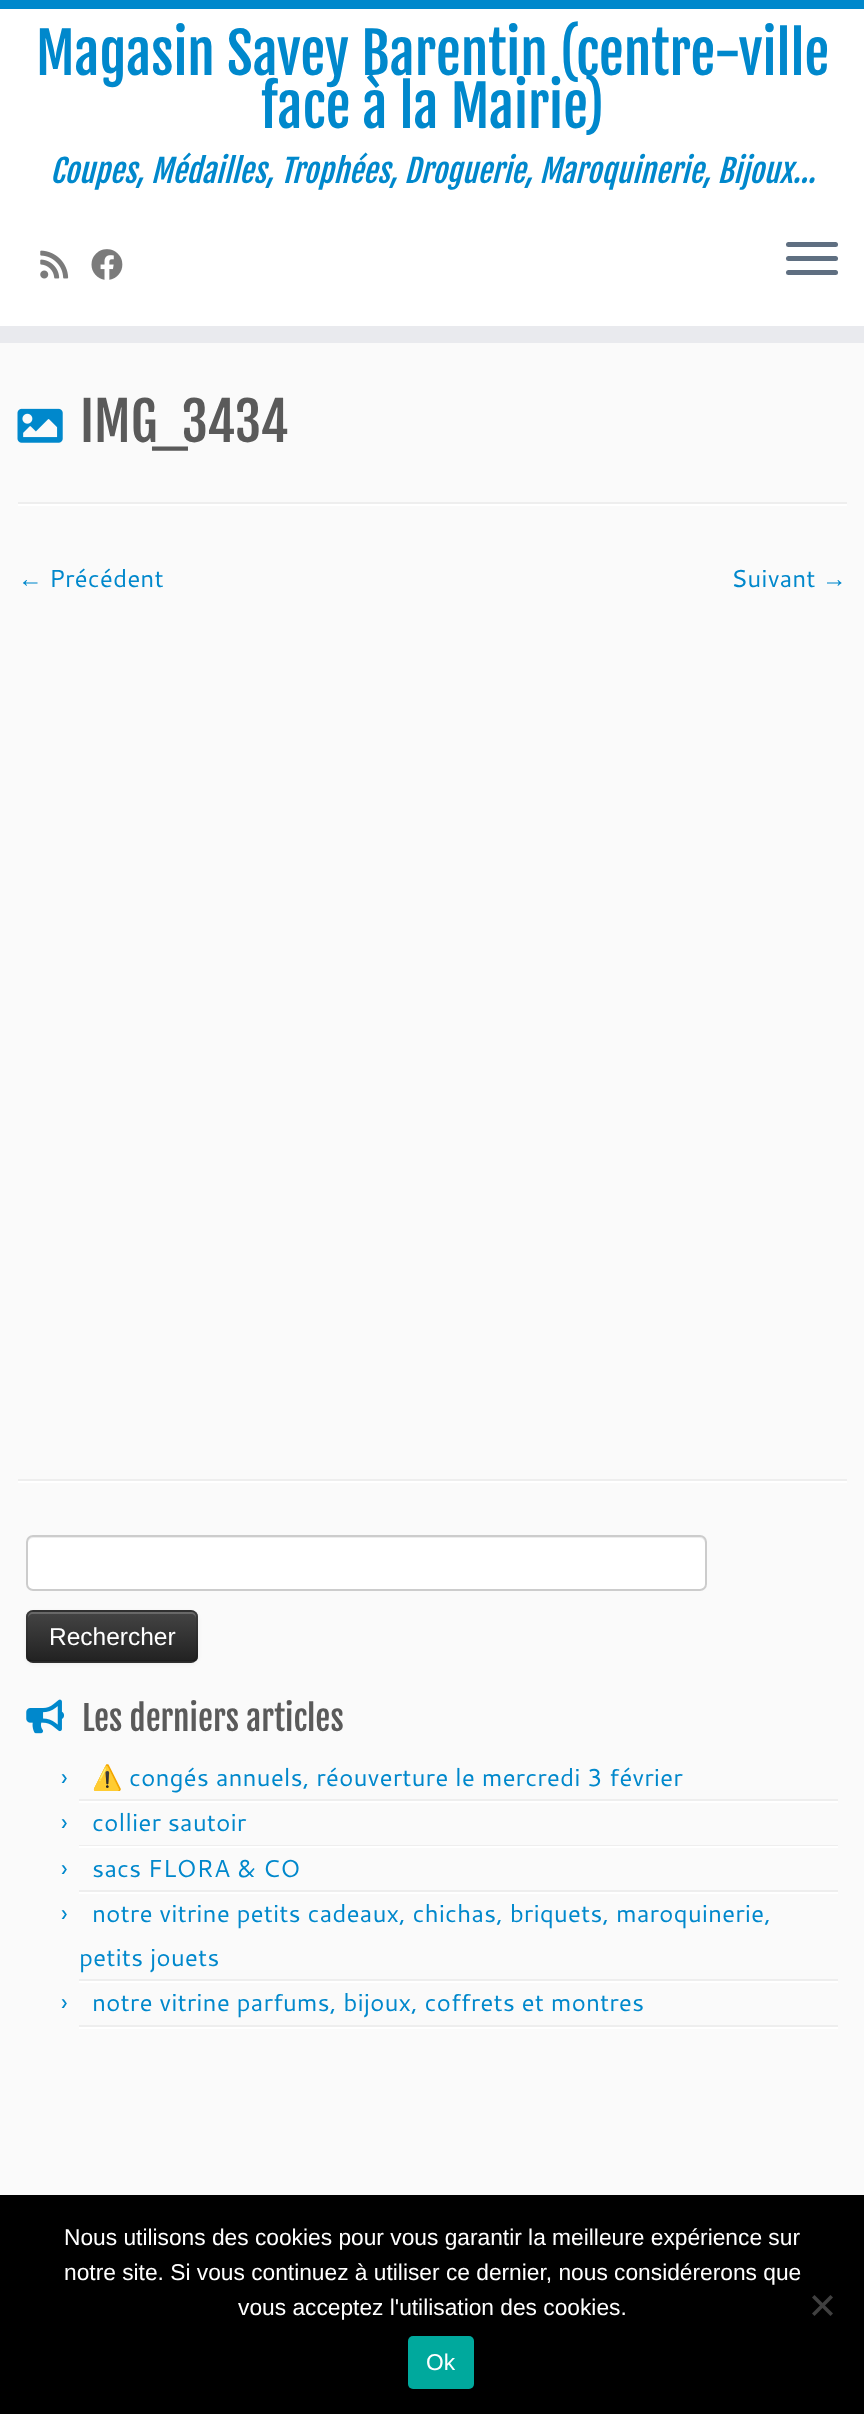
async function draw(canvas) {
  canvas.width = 864;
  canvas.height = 2414;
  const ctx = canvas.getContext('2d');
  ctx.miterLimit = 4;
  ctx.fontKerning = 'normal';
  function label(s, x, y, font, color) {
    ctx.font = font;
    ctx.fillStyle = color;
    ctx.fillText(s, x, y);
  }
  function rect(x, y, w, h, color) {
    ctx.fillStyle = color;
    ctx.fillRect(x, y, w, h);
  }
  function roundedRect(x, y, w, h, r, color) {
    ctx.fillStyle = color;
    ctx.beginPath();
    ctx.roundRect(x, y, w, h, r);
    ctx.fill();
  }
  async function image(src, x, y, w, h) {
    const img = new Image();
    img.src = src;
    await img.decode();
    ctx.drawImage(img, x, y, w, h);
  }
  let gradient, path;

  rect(0, 0, 864, 2414, '#fafafa');
  rect(0, 9, 864, 317, '#fff');
  rect(0, 0, 864, 9, '#08c');
  rect(0, 326, 864, 17, '#e9eaee');
  label('Magasin Savey Barentin (centre-ville', 36, 75, '56px Fjalla One', '#08c');
  label('face à la Mairie)', 261, 128, '56px Fjalla One', '#08c');
  label('Coupes, Médailles, Trophées, Droguerie, Maroquinerie, Bijoux…', 50, 183, 'italic 31.5px Fjalla One', '#08c');
  await image('assets/img1.png', 40, 250, 29, 29);
  await image('assets/img2.png', 91, 249, 32, 31);
  roundedRect(786, 242, 52, 5, 2.5, '#5f6f81');
  roundedRect(786, 256, 52, 5, 2.5, '#5f6f81');
  roundedRect(786, 270, 52, 5, 2.5, '#5f6f81');
  await image('assets/img3.png', 17, 408, 46, 35);
  label('IMG_3434', 80, 442, '53px Fjalla One', '#5a5a5a');
  rect(18, 502, 829, 2, '#eee');
  rect(18, 504, 829, 2, '#fff');
  label('←', 18, 587, '24.5px Liberation Serif', '#08c');
  label('Précédent', 49, 587, '24.5px Cantarell', '#08c');
  label('Suivant', 731, 587, '24.5px Cantarell', '#08c');
  label('→', 822, 587, '24.5px Liberation Serif', '#08c');
  rect(18, 1479, 829, 2, '#eee');
  rect(18, 1481, 829, 2, '#fff');
  roundedRect(26, 1535, 681, 56, 7, '#fff');
  ctx.fillStyle = '#ececec';
  path = new Path2D('M33 1538H700C703 1538 705 1541 705 1544V1542C705 1539 703 1537 700 1537H33C30 1537 28 1539 28 1542V1544C28 1541 30 1538 33 1538Z');
  ctx.fill(path);
  ctx.beginPath();
  ctx.roundRect(27, 1536, 679, 54, 6);
  ctx.strokeStyle = '#ccc';
  ctx.lineWidth = 2;
  ctx.stroke();
  ctx.fillStyle = '#0000000d';
  ctx.filter = 'blur(2px)';
  ctx.beginPath();
  ctx.roundRect(26, 1612, 172, 52, 7);
  ctx.fill();
  ctx.filter = 'none';
  roundedRect(26, 1610, 172, 53, 7, '#363636');
  ctx.save();
  ctx.beginPath();
  ctx.roundRect(26, 1610, 172, 53, 7);
  ctx.clip();
  gradient = ctx.createLinearGradient(112, 1612, 112, 1661);
  gradient.addColorStop(0, '#444');
  gradient.addColorStop(1, '#222');
  ctx.fillStyle = gradient;
  ctx.fillRect(26, 1612, 172, 49);
  ctx.restore();
  ctx.fillStyle = '#ffffff33';
  path = new Path2D('M33 1614H191C194 1614 196 1616 196 1619V1617C196 1614 194 1612 191 1612H33C30 1612 28 1614 28 1617V1619C28 1616 30 1614 33 1614Z');
  ctx.fill(path);
  path = new Path2D('M195 1660C194 1661 192.5 1661.5 191 1661.5H33C31.5 1661.5 30 1661 29 1660');
  ctx.strokeStyle = '#00000040';
  ctx.lineWidth = 1.8;
  ctx.stroke(path);
  path = new Path2D('M29 1660C25.5 1656.5 27 1646.5 27 1642.5V1623.5C27 1618.5 26.5 1611 33 1611H191C197.5 1611 197 1618.5 197 1623.5V1642.5C197 1646.5 198.5 1656.5 195 1660');
  ctx.strokeStyle = '#0000001a';
  ctx.stroke(path);
  label('Rechercher', 49, 1645, '24.5px Liberation Sans', '#fff');
  await image('assets/img4.png', 26, 1699, 38, 35);
  label('Les derniers articles', 82, 1731, '33.5px Fjalla One', '#5a5a5a');
  rect(79, 1799, 759, 2, '#eee');
  label('›', 61, 1786, '24.5px Cantarell', '#08c');
  label('⚠️', 92, 1786, '24.5px Noto Color Emoji', '#08c');
  label('congés annuels, réouverture le mercredi 3 février', 129, 1786, '24.5px Cantarell', '#08c');
  rect(79, 1801, 759, 2, '#fff');
  rect(79, 1845, 759, 1, '#eee');
  label('›', 61, 1831, '24.5px Cantarell', '#08c');
  label('collier sautoir', 92, 1831, '24.5px Cantarell', '#08c');
  rect(79, 1846, 759, 2, '#fff');
  rect(79, 1890, 759, 2, '#eee');
  label('›', 61, 1877, '24.5px Cantarell', '#08c');
  label('sacs FLORA & CO', 92, 1877, '24.5px Cantarell', '#08c');
  rect(79, 1892, 759, 2, '#fff');
  rect(79, 1979, 759, 2, '#eee');
  label('›', 61, 1922, '24.5px Cantarell', '#08c');
  label('notre vitrine petits cadeaux, chichas, briquets, maroquinerie,', 92, 1922, '24.5px Cantarell', '#08c');
  label('petits jouets', 79, 1966, '24.5px Cantarell', '#08c');
  rect(79, 1981, 759, 2, '#fff');
  rect(79, 2025, 759, 2, '#eee');
  label('›', 61, 2011, '24.5px Cantarell', '#08c');
  label('notre vitrine parfums, bijoux, coffrets et montres', 92, 2011, '24.5px Cantarell', '#08c');
  rect(79, 2027, 759, 2, '#fff');
  rect(0, 2195, 864, 219, '#000');
  label('Nous utilisons des cookies pour vous garantir la meilleure expérience sur', 64, 2245, '22.75px Liberation Sans', '#fff');
  label('notre site. Si vous continuez à utiliser ce dernier, nous considérerons que', 64, 2280, '22.75px Liberation Sans', '#fff');
  label('vous acceptez l\'utilisation des cookies.', 238, 2315, '22.75px Liberation Sans', '#fff');
  ctx.fillStyle = '#404040';
  path = new Path2D('M830.5 2295L833 2297.5L814.5 2316L812 2313.5Z');
  ctx.fill(path);
  path = new Path2D('M812 2297.5L814.5 2295L833 2313.5L830.5 2316Z');
  ctx.fill(path);
  roundedRect(408, 2336, 66, 53, 5, '#00a99d');
  label('Ok', 426, 2370, '22.75px Liberation Sans', '#fff');
}

draw(document.querySelector('canvas'));
